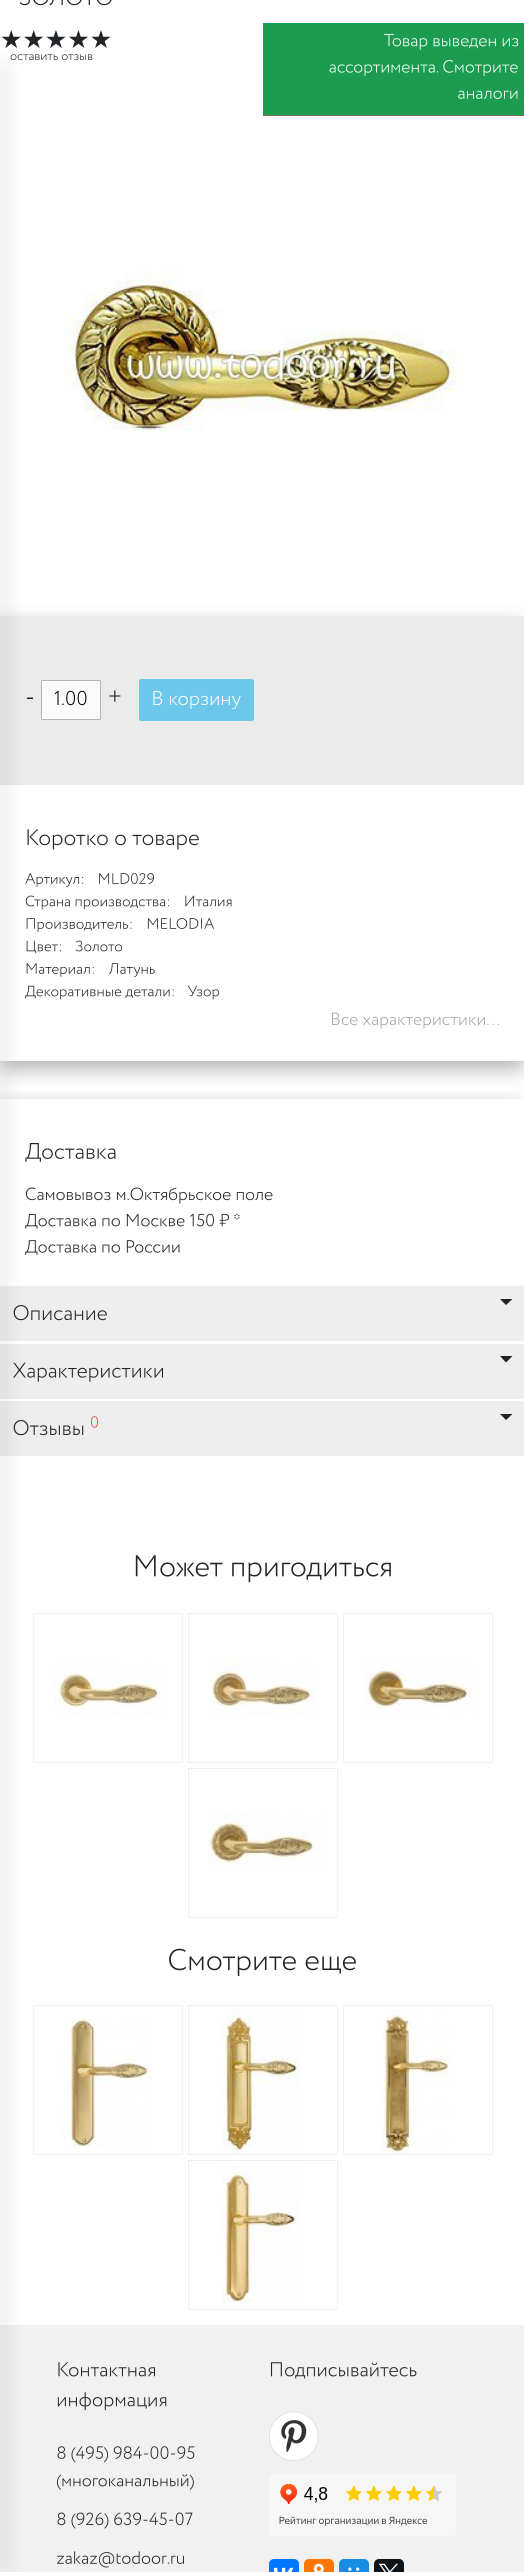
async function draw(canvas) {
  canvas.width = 524;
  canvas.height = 2572;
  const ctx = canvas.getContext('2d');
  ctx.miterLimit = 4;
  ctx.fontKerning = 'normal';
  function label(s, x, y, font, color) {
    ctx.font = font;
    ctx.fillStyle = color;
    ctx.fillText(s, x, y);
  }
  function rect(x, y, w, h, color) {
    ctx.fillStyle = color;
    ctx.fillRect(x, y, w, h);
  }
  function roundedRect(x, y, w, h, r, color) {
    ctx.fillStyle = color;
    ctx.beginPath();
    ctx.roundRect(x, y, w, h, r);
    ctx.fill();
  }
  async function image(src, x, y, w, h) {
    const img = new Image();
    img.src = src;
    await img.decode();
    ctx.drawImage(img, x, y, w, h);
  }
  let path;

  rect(0, 0, 524, 2572, '#fff');
  await image('assets/img1.png', 19, 0, 93, 6);
  label('★★★★★', 0, 48, '25px DejaVu Sans', '#212529');
  await image('assets/img2.png', 10, 54, 83, 7);
  rect(263, 23, 261, 92, '#1c9c50');
  rect(263, 115, 261, 1, '#756e5f');
  await image('assets/img3.png', 383, 33, 136, 17);
  await image('assets/img4.png', 329, 60, 189, 16);
  await image('assets/img5.png', 458, 90, 60, 9);
  await image('assets/img6.png', 63, 270, 401, 161);
  ctx.fillStyle = '#0000004d';
  ctx.filter = 'blur(10px)';
  ctx.beginPath();
  ctx.rect(0, 624, 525, 445);
  ctx.fill();
  ctx.filter = 'none';
  rect(0, 785, 524, 276, '#fff');
  rect(0, 616, 524, 169, '#eaeaea');
  ctx.fillStyle = '#212529';
  path = new Path2D('M27 699V697.5H33V699Z');
  ctx.fill(path);
  ctx.fillStyle = '#fbfbfb';
  ctx.beginPath();
  ctx.rect(41.5, 680.5, 59, 39);
  ctx.fill();
  ctx.strokeStyle = '#b5b5b5';
  ctx.stroke();
  await image('assets/img7.png', 54, 690, 33, 16);
  await image('assets/img8.png', 109, 690, 12, 12);
  roundedRect(139, 679, 115, 42, 2.5, '#6cc7ea');
  await image('assets/img9.png', 153, 690, 88, 19);
  await image('assets/img10.png', 27, 829, 172, 21);
  await image('assets/img11.png', 25, 873, 59, 14);
  await image('assets/img12.png', 99, 873, 55, 11);
  await image('assets/img13.png', 25, 895, 144, 15);
  await image('assets/img14.png', 185, 895, 47, 12);
  await image('assets/img15.png', 26, 918, 106, 14);
  await image('assets/img16.png', 147, 918, 67, 11);
  await image('assets/img17.png', 26, 940, 35, 14);
  await image('assets/img18.png', 75, 940, 47, 12);
  await image('assets/img19.png', 26, 963, 68, 14);
  await image('assets/img20.png', 109, 963, 46, 14);
  await image('assets/img21.png', 25, 985, 149, 15);
  await image('assets/img22.png', 187, 985, 33, 15);
  await image('assets/img23.png', 331, 1012, 168, 17);
  ctx.save();
  ctx.beginPath();
  ctx.rect(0, 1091, 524, 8);
  ctx.clip();
  ctx.fillStyle = '#0000004d';
  ctx.filter = 'blur(10px)';
  ctx.beginPath();
  ctx.rect(0, 1106, 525, 188);
  ctx.fill();
  ctx.filter = 'none';
  ctx.restore();
  await image('assets/img24.png', 25, 1143, 91, 19);
  await image('assets/img25.png', 25, 1187, 248, 17);
  await image('assets/img26.png', 25, 1213, 215, 16);
  await image('assets/img27.png', 25, 1240, 155, 15);
  rect(0, 1286, 524, 55, '#eee');
  ctx.fillStyle = '#212529';
  path = new Path2D('M500 1299H512.5L506 1305Z');
  ctx.fill(path);
  await image('assets/img28.png', 13, 1305, 94, 16);
  rect(0, 1344, 524, 55, '#eee');
  ctx.fillStyle = '#212529';
  path = new Path2D('M500 1356H512.5L506 1362.5Z');
  ctx.fill(path);
  await image('assets/img29.png', 13, 1362, 151, 20);
  rect(0, 1401, 524, 55, '#eee');
  await image('assets/img30.png', 13, 1420, 71, 16);
  await image('assets/img31.png', 91, 1416, 7, 12);
  ctx.fillStyle = '#212529';
  path = new Path2D('M500 1414H512.5L506 1420Z');
  ctx.fill(path);
  await image('assets/img32.png', 135, 1555, 256, 28);
  ctx.strokeStyle = '#efefef';
  ctx.strokeRect(33.5, 1613.5, 149, 149);
  await image('assets/img33.png', 53, 1661, 114, 55);
  ctx.strokeRect(188.5, 1613.5, 149, 149);
  await image('assets/img34.png', 208, 1657, 109, 60);
  ctx.strokeRect(343.5, 1613.5, 149, 149);
  await image('assets/img35.png', 363, 1657, 114, 60);
  ctx.strokeRect(188.5, 1768.5, 149, 149);
  await image('assets/img36.png', 208, 1812, 119, 59);
  await image('assets/img37.png', 169, 1948, 187, 28);
  ctx.strokeRect(33.5, 2005.5, 149, 149);
  await image('assets/img38.png', 62, 2018, 90, 130);
  ctx.strokeRect(188.5, 2005.5, 149, 149);
  await image('assets/img39.png', 222, 2009, 79, 145);
  ctx.strokeRect(343.5, 2005.5, 149, 149);
  await image('assets/img40.png', 382, 2009, 71, 145);
  ctx.strokeRect(188.5, 2160.5, 149, 149);
  await image('assets/img41.png', 222, 2164, 78, 139);
  rect(0, 2325, 524, 247, '#f1f1f1');
  ctx.fillStyle = '#00000066';
  ctx.filter = 'blur(9.5px)';
  ctx.beginPath();
  ctx.rect(-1, 61, 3, 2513);
  ctx.fill();
  ctx.filter = 'none';
  await image('assets/img42.png', 58, 2362, 98, 15);
  await image('assets/img43.png', 57, 2392, 110, 19);
  await image('assets/img44.png', 57, 2446, 138, 17);
  await image('assets/img45.png', 57, 2474, 137, 16);
  await image('assets/img46.png', 57, 2512, 136, 17);
  await image('assets/img47.png', 57, 2551, 127, 17);
  await image('assets/img48.png', 270, 2362, 147, 17);
  await image('assets/img49.png', 269, 2411, 50, 50);
  await image('assets/img50.png', 269, 2474, 187, 62);
  roundedRect(269, 2559, 30, 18, 5, '#07f');
  await image('assets/img51.png', 273, 2567, 20, 5);
  roundedRect(304, 2559, 30, 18, 5, '#f70');
  await image('assets/img52.png', 313, 2563, 11, 9);
  roundedRect(339, 2559, 30, 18, 5, '#168de2');
  await image('assets/img53.png', 348, 2567, 12, 4);
  roundedRect(374, 2559, 30, 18, 5, '#0f1419');
  await image('assets/img54.png', 378, 2563, 20, 9);
}

draw(document.querySelector('canvas'));
